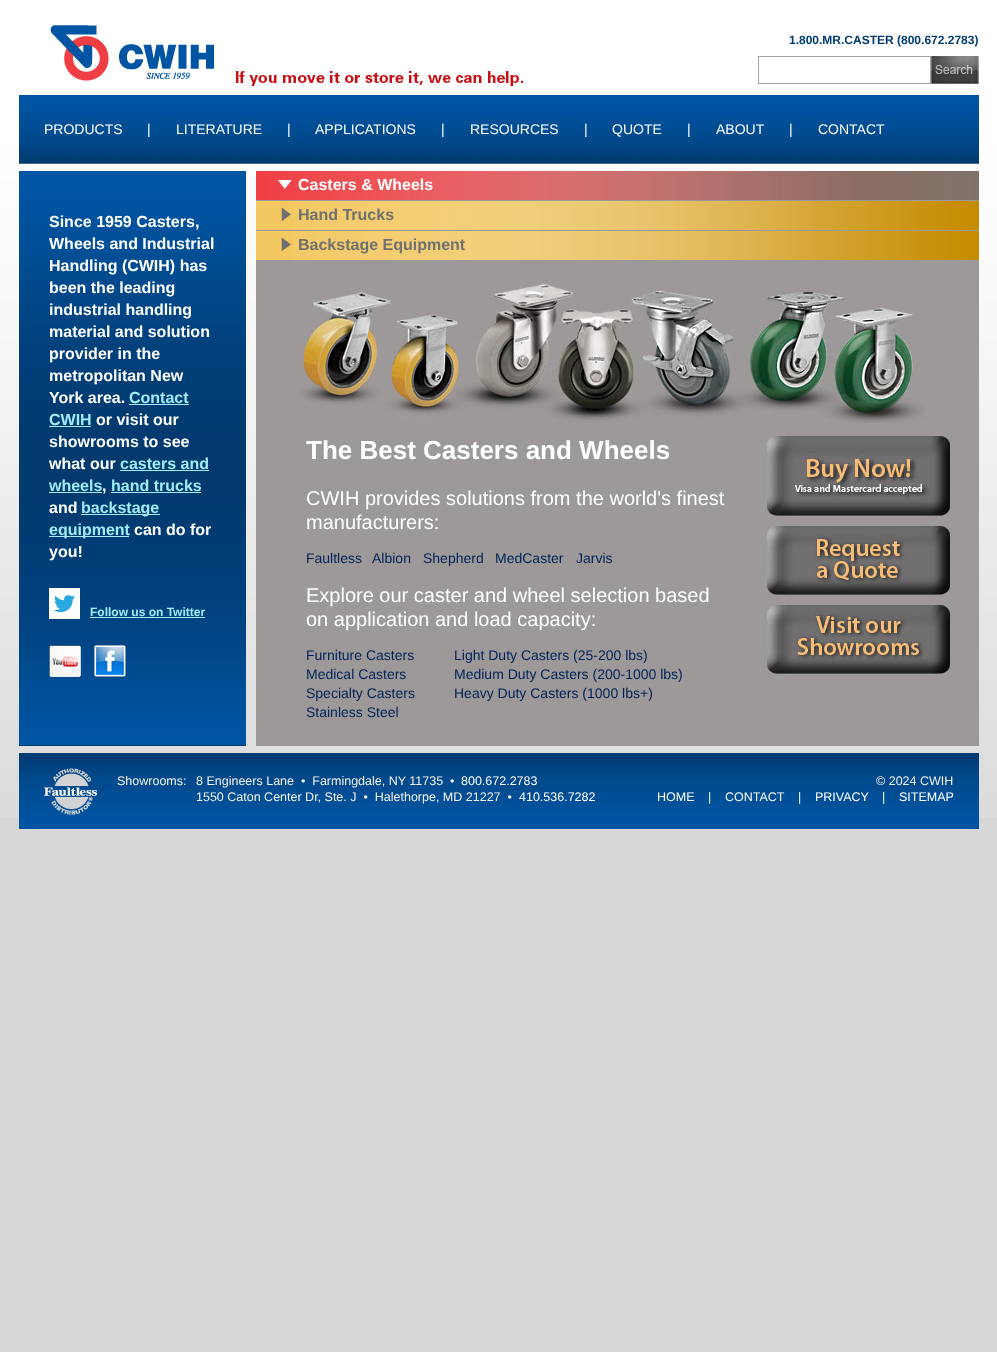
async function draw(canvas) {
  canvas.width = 997;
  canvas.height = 1352;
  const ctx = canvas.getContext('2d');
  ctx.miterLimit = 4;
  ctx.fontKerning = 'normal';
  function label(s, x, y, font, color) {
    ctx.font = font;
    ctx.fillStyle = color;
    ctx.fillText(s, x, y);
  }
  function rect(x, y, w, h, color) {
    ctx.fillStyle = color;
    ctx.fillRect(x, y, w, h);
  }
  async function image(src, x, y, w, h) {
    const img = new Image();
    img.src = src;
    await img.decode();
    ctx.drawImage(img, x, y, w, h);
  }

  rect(0, 0, 997, 1352, '#d7d7d7');
  await image('assets/img1.png', 0, 0, 997, 818);
  await image('assets/img2.png', 50, 25, 473, 62);
  label('1.800.MR.CASTER (800.672.2783)', 789, 44, 'bold 12px Liberation Sans', '#003c74');
  ctx.strokeStyle = '#a5a5a5';
  ctx.strokeRect(758.5, 56.5, 172, 27);
  await image('assets/img3.png', 931, 56, 48, 28);
  await image('assets/img4.png', 19, 95, 960, 69);
  label('PRODUCTS', 44, 134, '14px Liberation Sans', '#fff');
  label('|', 147, 134, '14px Liberation Sans', '#fff');
  label('LITERATURE', 176, 134, '14px Liberation Sans', '#fff');
  label('|', 287, 134, '14px Liberation Sans', '#fff');
  label('APPLICATIONS', 315, 134, '14px Liberation Sans', '#fff');
  label('|', 441, 134, '14px Liberation Sans', '#fff');
  label('RESOURCES', 470, 134, '14px Liberation Sans', '#fff');
  label('|', 584, 134, '14px Liberation Sans', '#fff');
  label('QUOTE', 612, 134, '14px Liberation Sans', '#fff');
  label('|', 687, 134, '14px Liberation Sans', '#fff');
  label('ABOUT', 716, 134, '14px Liberation Sans', '#fff');
  label('|', 789, 134, '14px Liberation Sans', '#fff');
  label('CONTACT', 818, 134, '14px Liberation Sans', '#fff');
  rect(19, 745, 227, 1, '#003b72');
  await image('assets/img5.png', 19, 171, 227, 574);
  label('Since 1959 Casters,', 49, 227, 'bold 16px Liberation Sans', '#fff');
  label('Wheels and Industrial', 49, 249, 'bold 16px Liberation Sans', '#fff');
  label('Handling (CWIH) has', 49, 271, 'bold 16px Liberation Sans', '#fff');
  label('been the leading', 49, 293, 'bold 16px Liberation Sans', '#fff');
  label('industrial handling', 49, 315, 'bold 16px Liberation Sans', '#fff');
  label('material and solution', 49, 337, 'bold 16px Liberation Sans', '#fff');
  label('provider in the', 49, 359, 'bold 16px Liberation Sans', '#fff');
  label('metropolitan New', 49, 381, 'bold 16px Liberation Sans', '#fff');
  label('York area.', 49, 403, 'bold 16px Liberation Sans', '#fff');
  label('Contact', 129, 403, 'bold 16px Liberation Sans', '#a0ecf9');
  rect(129, 404, 60, 1, '#a0ecf9');
  label('CWIH', 49, 425, 'bold 16px Liberation Sans', '#a0ecf9');
  rect(49, 426, 42, 1, '#a0ecf9');
  label('or visit our', 96, 425, 'bold 16px Liberation Sans', '#fff');
  label('showrooms to see', 49, 447, 'bold 16px Liberation Sans', '#fff');
  label('what our', 49, 469, 'bold 16px Liberation Sans', '#fff');
  label('casters and', 120, 469, 'bold 16px Liberation Sans', '#a0ecf9');
  rect(120, 470, 89, 1, '#a0ecf9');
  label('wheels', 49, 491, 'bold 16px Liberation Sans', '#a0ecf9');
  rect(49, 492, 53, 1, '#a0ecf9');
  label(',', 102, 491, 'bold 16px Liberation Sans', '#fff');
  label('hand trucks', 111, 491, 'bold 16px Liberation Sans', '#a0ecf9');
  rect(111, 492, 90, 1, '#a0ecf9');
  label('and', 49, 513, 'bold 16px Liberation Sans', '#fff');
  rect(81, 514, 79, 1, '#a0ecf9');
  label('backstage', 81, 513, 'bold 16px Liberation Sans', '#a0ecf9');
  rect(49, 536, 80, 1, '#a0ecf9');
  label('equipment', 49, 535, 'bold 16px Liberation Sans', '#a0ecf9');
  label('can do for', 134, 535, 'bold 16px Liberation Sans', '#fff');
  label('you!', 49, 557, 'bold 16px Liberation Sans', '#fff');
  await image('assets/img6.png', 49, 588, 31, 31);
  label('Follow us on Twitter', 90, 616, 'bold 12px Liberation Sans', '#a0ecf9');
  rect(90, 617, 115, 1, '#a0ecf9');
  await image('assets/img7.png', 49, 645, 32, 32);
  await image('assets/img8.png', 94, 645, 32, 32);
  rect(256, 260, 723, 486, '#9d9999');
  await image('assets/img9.png', 256, 171, 723, 29);
  rect(256, 200, 723, 1, '#9d9999');
  await image('assets/img10.png', 278, 180, 14, 9);
  label('Casters & Wheels', 298, 190, 'bold 16px Liberation Sans', '#fff');
  rect(256, 201, 37, 29, '#f3c861');
  await image('assets/img11.png', 293, 201, 686, 29);
  rect(256, 230, 723, 1, '#9d9999');
  await image('assets/img12.png', 281, 207, 10, 15);
  label('Hand Trucks', 298, 220, 'bold 16px Liberation Sans', '#707070');
  rect(256, 231, 37, 29, '#f3c861');
  await image('assets/img11.png', 293, 231, 686, 29);
  await image('assets/img12.png', 281, 237, 10, 15);
  label('Backstage Equipment', 298, 250, 'bold 16px Liberation Sans', '#707070');
  await image('assets/img13.png', 299, 279, 626, 144);
  label('The Best Casters and Wheels', 306, 459, 'bold 26px Liberation Sans', '#fff');
  label('CWIH provides solutions from the world\'s finest', 306, 505, '20px Liberation Sans', '#fff');
  label('manufacturers:', 306, 529, '20px Liberation Sans', '#fff');
  label('Faultless', 306, 563, '14px Liberation Sans', '#002157');
  label('Albion', 372, 563, '14px Liberation Sans', '#002157');
  label('Shepherd', 423, 563, '14px Liberation Sans', '#002157');
  label('MedCaster', 495, 563, '14px Liberation Sans', '#002157');
  label('Jarvis', 576, 563, '14px Liberation Sans', '#002157');
  label('Explore our caster and wheel selection based', 306, 602, '20px Liberation Sans', '#fff');
  label('on application and load capacity:', 306, 626, '20px Liberation Sans', '#fff');
  label('Furniture Casters', 306, 660, '14px Liberation Sans', '#002157');
  label('Medical Casters', 306, 679, '14px Liberation Sans', '#002157');
  label('Specialty Casters', 306, 698, '14px Liberation Sans', '#002157');
  label('Stainless Steel', 306, 717, '14px Liberation Sans', '#002157');
  label('Light Duty Casters (25-200 lbs)', 454, 660, '14px Liberation Sans', '#002157');
  label('Medium Duty Casters (200-1000 lbs)', 454, 679, '14px Liberation Sans', '#002157');
  label('Heavy Duty Casters (1000 lbs+)', 454, 698, '14px Liberation Sans', '#002157');
  await image('assets/img14.png', 766, 436, 184, 80);
  await image('assets/img15.png', 766, 526, 184, 69);
  await image('assets/img16.png', 766, 605, 184, 69);
  await image('assets/img17.png', 19, 753, 960, 76);
  await image('assets/img18.png', 44, 768, 53, 47);
  label('Showrooms:', 117, 785, '12.5px Liberation Sans', '#f5f1eb');
  label('8 Engineers Lane  •  Farmingdale, NY 11735  •', 196, 785, '12.5px Liberation Sans', '#f5f1eb');
  label('800.672.2783', 461, 785, '12.5px Liberation Sans', '#fff');
  label('1550 Caton Center Dr, Ste. J  •  Halethorpe, MD 21227  •', 196, 801, '12.5px Liberation Sans', '#f5f1eb');
  label('410.536.7282', 519, 801, '12.5px Liberation Sans', '#fff');
  label('© 2024 CWIH', 876, 785, '12.5px Liberation Sans', '#f5f1eb');
  label('HOME', 657, 801, '12.5px Liberation Sans', '#fff');
  label('|', 708, 801, '12.5px Liberation Sans', '#f5f1eb');
  label('CONTACT', 725, 801, '12.5px Liberation Sans', '#fff');
  label('|', 798, 801, '12.5px Liberation Sans', '#f5f1eb');
  label('PRIVACY', 815, 801, '12.5px Liberation Sans', '#fff');
  label('|', 882, 801, '12.5px Liberation Sans', '#f5f1eb');
  label('SITEMAP', 899, 801, '12.5px Liberation Sans', '#fff');
}

draw(document.querySelector('canvas'));
